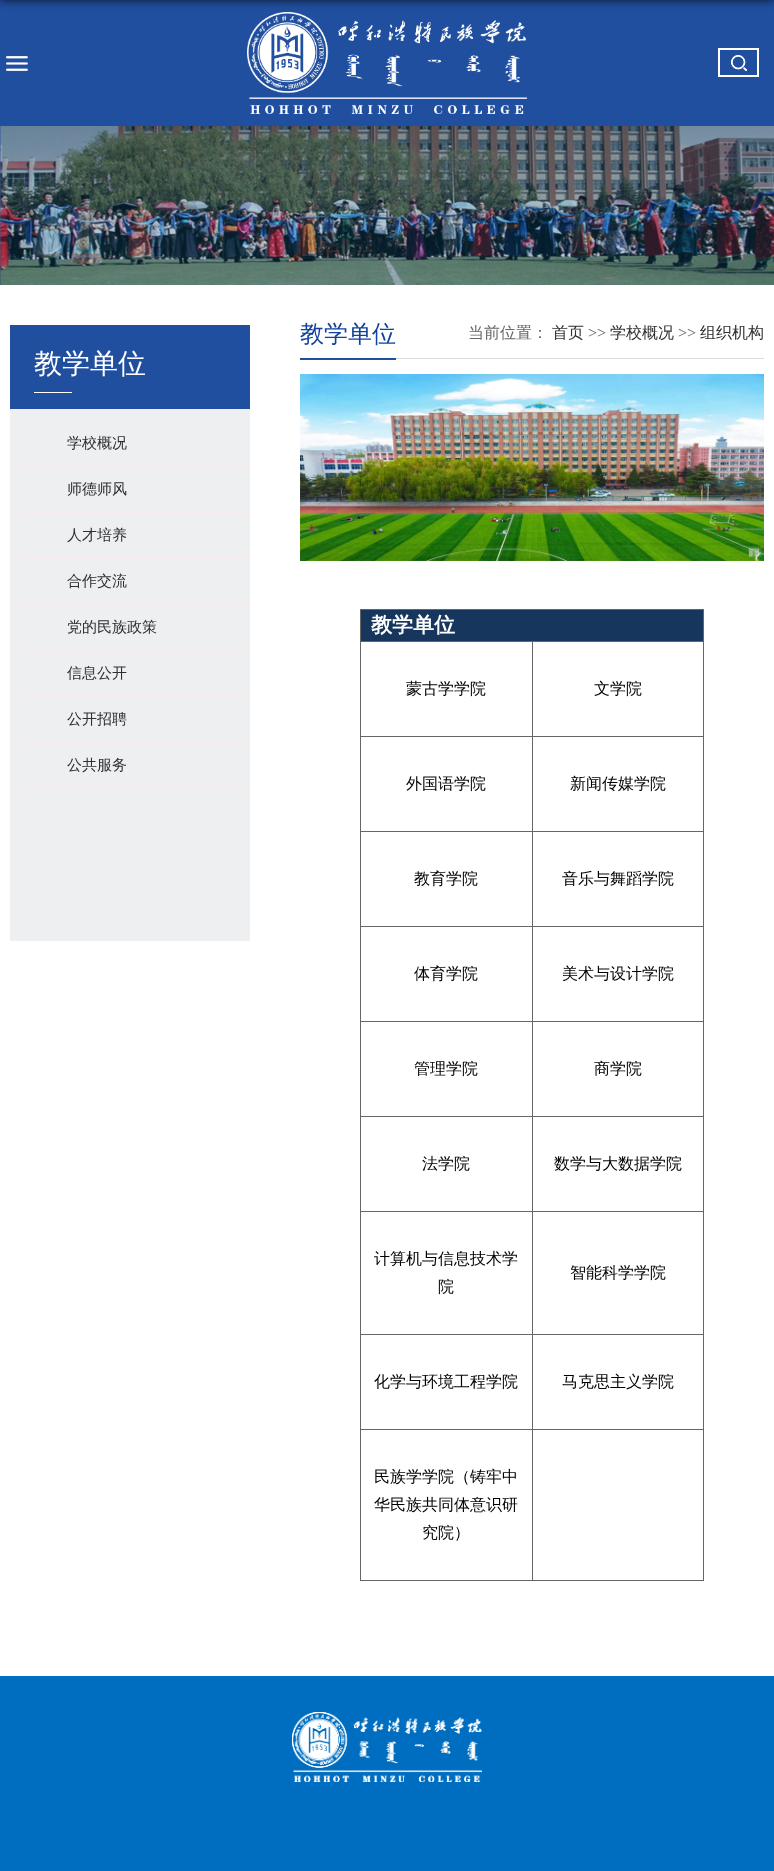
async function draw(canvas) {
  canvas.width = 774;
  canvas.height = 1871;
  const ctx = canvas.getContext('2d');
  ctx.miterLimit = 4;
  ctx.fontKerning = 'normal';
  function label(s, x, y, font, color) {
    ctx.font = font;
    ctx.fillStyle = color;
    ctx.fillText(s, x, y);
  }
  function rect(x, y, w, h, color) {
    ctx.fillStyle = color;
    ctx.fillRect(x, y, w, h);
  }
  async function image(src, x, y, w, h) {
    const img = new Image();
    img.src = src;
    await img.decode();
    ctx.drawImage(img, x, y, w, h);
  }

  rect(0, 0, 774, 1871, '#fff');
  rect(0, 0, 774, 126, '#204f9f');
  await image('assets/img1.png', 6, 56, 22, 15);
  await image('assets/img2.png', 247, 12, 280, 102);
  ctx.strokeStyle = '#fff';
  ctx.lineWidth = 2;
  ctx.strokeRect(719, 49, 39, 27);
  await image('assets/img3.png', 731, 55, 16, 16);
  ctx.fillStyle = '#000000cc';
  ctx.filter = 'blur(5px)';
  ctx.beginPath();
  ctx.rect(0, -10, 774, 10);
  ctx.fill();
  ctx.filter = 'none';
  await image('assets/img4.png', 0, 126, 774, 159);
  rect(10, 325, 240, 84, '#204f9f');
  label('教学单位', 34, 373, '500 28px WenQuanYi Zen Hei', '#fff');
  rect(34, 392, 38, 1, '#fff');
  rect(10, 409, 240, 532, '#eeeff1');
  rect(22, 466, 228, 1, '#f6eaea');
  label('学校概况', 67, 448, '500 15px WenQuanYi Zen Hei', '#2f2f2f');
  rect(22, 512, 228, 1, '#f6eaea');
  label('师德师风', 67, 494, '500 15px WenQuanYi Zen Hei', '#2f2f2f');
  rect(22, 558, 228, 1, '#f6eaea');
  label('人才培养', 67, 540, '500 15px WenQuanYi Zen Hei', '#2f2f2f');
  rect(22, 604, 228, 1, '#f6eaea');
  label('合作交流', 67, 586, '500 15px WenQuanYi Zen Hei', '#2f2f2f');
  rect(22, 650, 228, 1, '#f6eaea');
  label('党的民族政策', 67, 632, '500 15px WenQuanYi Zen Hei', '#2f2f2f');
  rect(22, 696, 228, 1, '#f6eaea');
  label('信息公开', 67, 678, '500 15px WenQuanYi Zen Hei', '#2f2f2f');
  rect(22, 742, 228, 1, '#f6eaea');
  label('公开招聘', 67, 724, '500 15px WenQuanYi Zen Hei', '#2f2f2f');
  rect(22, 788, 228, 1, '#f6eaea');
  label('公共服务', 67, 770, '500 15px WenQuanYi Zen Hei', '#2f2f2f');
  rect(396, 358, 368, 1, '#dbdbdb');
  rect(300, 358, 96, 2, '#204f9f');
  label('教学单位', 300, 342, '500 24px WenQuanYi Zen Hei', '#0f429b');
  label('当前位置：', 468, 338, '500 16px WenQuanYi Zen Hei', '#666');
  label('首页', 552, 338, '500 16px WenQuanYi Zen Hei', '#2f2f2f');
  label('>>', 588, 338, '16px Liberation Serif', '#666');
  label('学校概况', 610, 338, '500 16px WenQuanYi Zen Hei', '#2f2f2f');
  label('>>', 678, 338, '16px Liberation Serif', '#666');
  label('组织机构', 700, 338, '500 16px WenQuanYi Zen Hei', '#2f2f2f');
  await image('assets/img5.png', 300, 374, 464, 187);
  rect(361, 610, 342, 31, '#17365d');
  rect(360, 609, 344, 1, '#666');
  rect(532, 641, 172, 1, '#666');
  rect(532, 736, 172, 1, '#666');
  rect(532, 831, 172, 1, '#666');
  rect(532, 926, 172, 1, '#666');
  rect(532, 1021, 172, 1, '#666');
  rect(532, 1116, 172, 1, '#666');
  rect(532, 1211, 172, 1, '#666');
  rect(532, 1334, 172, 1, '#666');
  rect(532, 1429, 172, 1, '#666');
  rect(703, 1429, 1, 152, '#666');
  rect(703, 1334, 1, 96, '#666');
  rect(703, 1211, 1, 124, '#666');
  rect(703, 1116, 1, 96, '#666');
  rect(703, 1021, 1, 96, '#666');
  rect(703, 926, 1, 96, '#666');
  rect(703, 831, 1, 96, '#666');
  rect(703, 736, 1, 96, '#666');
  rect(703, 641, 1, 96, '#666');
  rect(703, 609, 1, 33, '#666');
  rect(532, 1580, 172, 1, '#666');
  rect(532, 1429, 1, 152, '#666');
  rect(360, 1429, 173, 1, '#666');
  rect(532, 1334, 1, 96, '#666');
  rect(360, 1334, 173, 1, '#666');
  rect(532, 1211, 1, 124, '#666');
  rect(360, 1211, 173, 1, '#666');
  rect(532, 1116, 1, 96, '#666');
  rect(360, 1116, 173, 1, '#666');
  rect(532, 1021, 1, 96, '#666');
  rect(360, 1021, 173, 1, '#666');
  rect(532, 926, 1, 96, '#666');
  rect(360, 926, 173, 1, '#666');
  rect(532, 831, 1, 96, '#666');
  rect(360, 831, 173, 1, '#666');
  rect(532, 736, 1, 96, '#666');
  rect(360, 736, 173, 1, '#666');
  rect(532, 641, 1, 96, '#666');
  rect(360, 641, 173, 1, '#666');
  rect(360, 1580, 173, 1, '#666');
  rect(360, 1429, 1, 152, '#666');
  rect(360, 1334, 1, 96, '#666');
  rect(360, 1211, 1, 124, '#666');
  rect(360, 1116, 1, 96, '#666');
  rect(360, 1021, 1, 96, '#666');
  rect(360, 926, 1, 96, '#666');
  rect(360, 831, 1, 96, '#666');
  rect(360, 736, 1, 96, '#666');
  rect(360, 641, 1, 96, '#666');
  rect(360, 609, 1, 33, '#666');
  label('教学单位', 371, 632, 'bold 21px WenQuanYi Zen Hei', '#fff');
  label('蒙古学学院', 406, 694, '500 16px WenQuanYi Zen Hei', '#000');
  label('文学院', 594, 694, '500 16px WenQuanYi Zen Hei', '#000');
  label('外国语学院', 406, 789, '500 16px WenQuanYi Zen Hei', '#000');
  label('新闻传媒学院', 570, 789, '500 16px WenQuanYi Zen Hei', '#000');
  label('教育学院', 414, 884, '500 16px WenQuanYi Zen Hei', '#000');
  label('音乐与舞蹈学院', 562, 884, '500 16px WenQuanYi Zen Hei', '#000');
  label('体育学院', 414, 979, '500 16px WenQuanYi Zen Hei', '#000');
  label('美术与设计学院', 562, 979, '500 16px WenQuanYi Zen Hei', '#000');
  label('管理学院', 414, 1074, '500 16px WenQuanYi Zen Hei', '#000');
  label('商学院', 594, 1074, '500 16px WenQuanYi Zen Hei', '#000');
  label('法学院', 422, 1169, '500 16px WenQuanYi Zen Hei', '#000');
  label('数学与大数据学院', 554, 1169, '500 16px WenQuanYi Zen Hei', '#000');
  label('计算机与信息技术学', 374, 1264, '500 16px WenQuanYi Zen Hei', '#000');
  label('院', 438, 1292, '500 16px WenQuanYi Zen Hei', '#000');
  label('智能科学学院', 570, 1278, '500 16px WenQuanYi Zen Hei', '#000');
  label('化学与环境工程学院', 374, 1387, '500 16px WenQuanYi Zen Hei', '#000');
  label('马克思主义学院', 562, 1387, '500 16px WenQuanYi Zen Hei', '#000');
  label('民族学学院（铸牢中', 374, 1482, '500 16px WenQuanYi Zen Hei', '#000');
  label('华民族共同体意识研', 374, 1510, '500 16px WenQuanYi Zen Hei', '#000');
  label('究院）', 422, 1538, '500 16px WenQuanYi Zen Hei', '#000');
  rect(0, 1676, 774, 195, '#006ec0');
  await image('assets/img6.png', 292, 1712, 190, 70);
  await image('assets/img7.png', 292, 1712, 190, 70);
}

draw(document.querySelector('canvas'));
